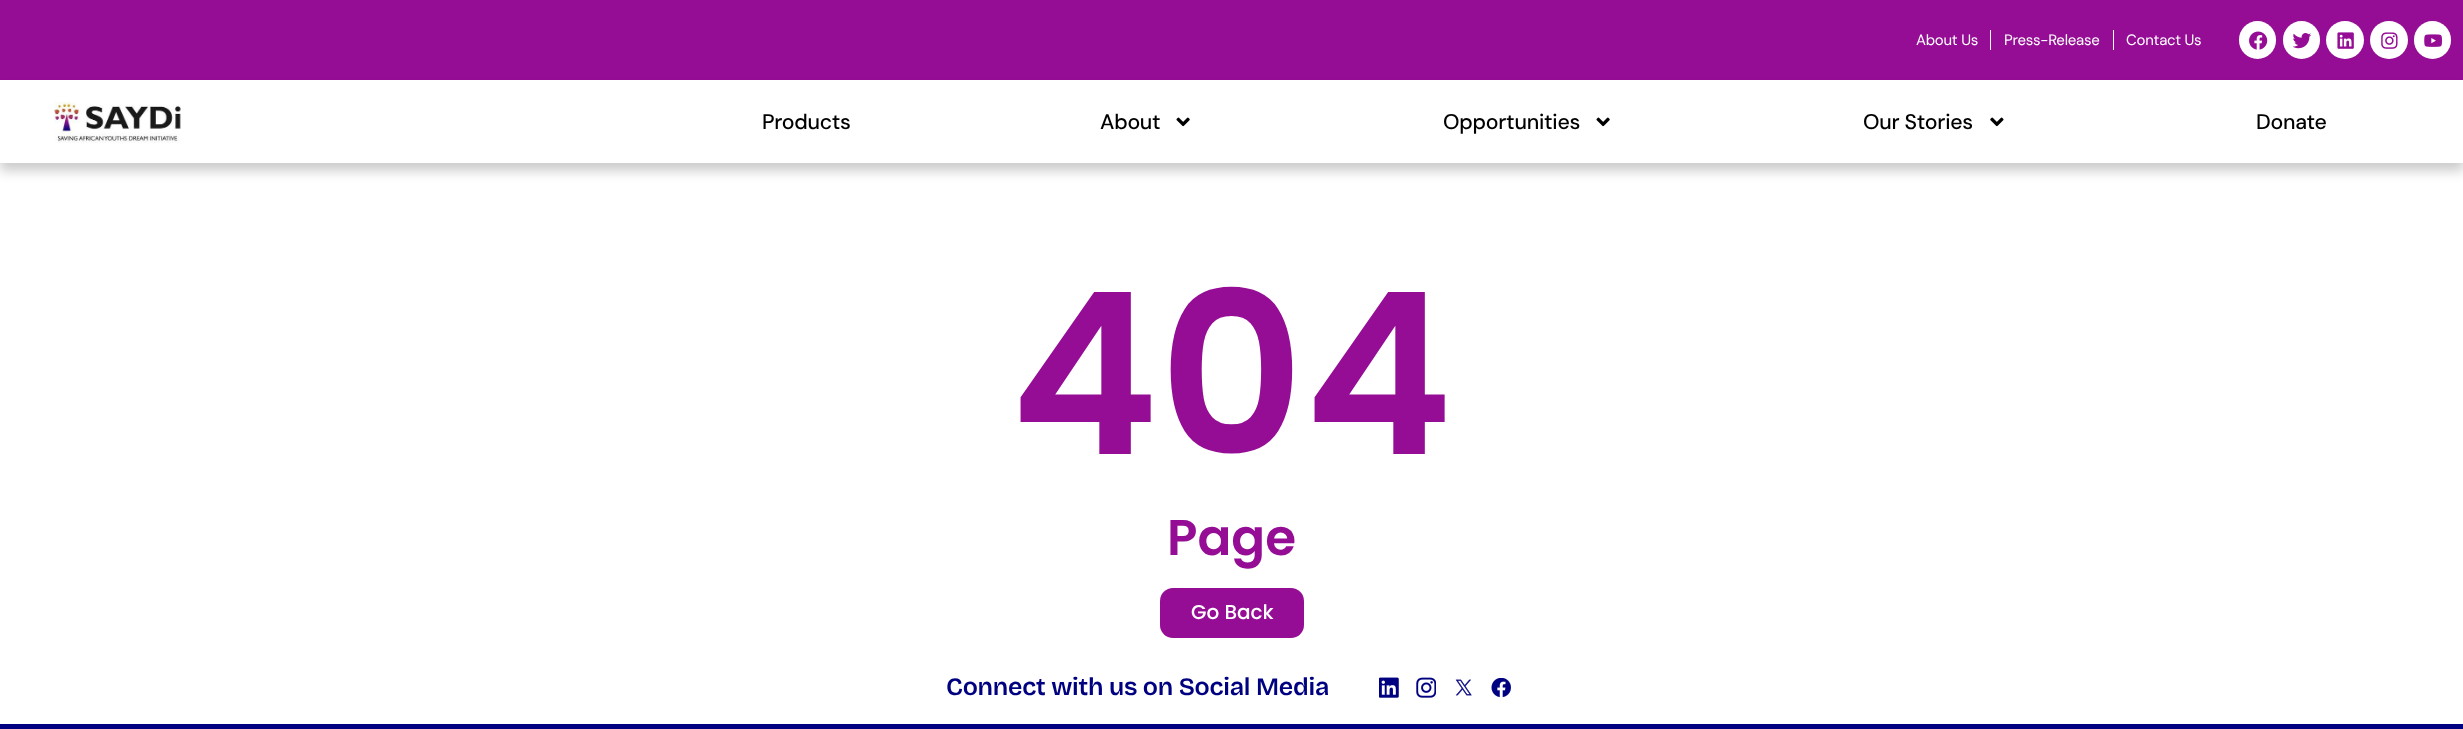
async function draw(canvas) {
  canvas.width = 2463;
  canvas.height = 729;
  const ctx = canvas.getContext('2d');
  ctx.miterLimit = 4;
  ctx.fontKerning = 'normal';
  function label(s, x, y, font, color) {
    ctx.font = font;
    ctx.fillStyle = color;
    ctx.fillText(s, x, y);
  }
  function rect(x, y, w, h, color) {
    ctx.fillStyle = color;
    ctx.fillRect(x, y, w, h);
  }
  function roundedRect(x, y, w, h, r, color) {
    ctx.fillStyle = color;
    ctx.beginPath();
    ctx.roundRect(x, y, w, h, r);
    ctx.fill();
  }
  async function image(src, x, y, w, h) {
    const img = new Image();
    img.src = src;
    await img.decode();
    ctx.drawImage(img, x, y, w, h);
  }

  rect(0, 0, 2463, 729, '#fff');
  rect(0, 0, 2463, 80, '#950d95');
  ctx.letterSpacing = '-0.25px';
  label('About Us', 1916, 45, '15px DM Sans', '#fff');
  rect(1990, 30, 1, 20, '#fff');
  label('Press-Release', 2004, 45, '15px DM Sans', '#fff');
  rect(2113, 30, 1, 20, '#fff');
  label('Contact Us', 2126, 45, '15px DM Sans', '#fff');
  roundedRect(2239, 21, 37, 38, 18.5, '#fff');
  await image('assets/img1.png', 2249, 31, 19, 19);
  roundedRect(2283, 21, 37, 38, 18.5, '#fff');
  await image('assets/img2.png', 2293, 33, 18, 16);
  ctx.beginPath();
  ctx.arc(2345, 40, 19, 0, 2 * Math.PI);
  ctx.fill();
  await image('assets/img3.png', 2337, 32, 17, 17);
  ctx.beginPath();
  ctx.arc(2389, 40, 19, 0, 2 * Math.PI);
  ctx.fill();
  await image('assets/img4.png', 2381, 32, 17, 17);
  roundedRect(2414, 21, 37, 38, 18.5, '#fff');
  await image('assets/img5.png', 2424, 34, 18, 13);
  ctx.fillStyle = '#00000033';
  ctx.filter = 'blur(6px)';
  ctx.beginPath();
  ctx.rect(0, 89, 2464, 82);
  ctx.fill();
  ctx.filter = 'none';
  rect(0, 80, 2463, 83, '#fff');
  await image('assets/img6.png', 54, 102, 127, 41);
  label('Products', 762, 129, '500 21.25px DM Sans', '#000');
  label('About', 1100, 129, '500 21.25px DM Sans', '#000');
  await image('assets/img7.png', 1176, 117, 14, 10);
  label('Opportunities', 1443, 129, '500 21.25px DM Sans', '#000');
  await image('assets/img7.png', 1596, 117, 14, 10);
  label('Our Stories', 1863, 129, '500 21.25px DM Sans', '#000');
  await image('assets/img8.png', 1990, 117, 14, 10);
  label('Donate', 2256, 129, '500 21.25px DM Sans', '#000');
  ctx.letterSpacing = '0px';
  label('404', 1010, 454, '600 225px Poppins', '#950d95');
  label('Page', 1167, 555, '600 50px Poppins', '#950d95');
  roundedRect(1160, 588, 144, 50, 13, '#950d95');
  label('Go Back', 1191, 619, '500 20px Poppins', '#fff');
  ctx.letterSpacing = '-0.25px';
  label('Connect with us on Social Media', 946, 695, '600 25px Bricolage Grotesque', '#000180');
  await image('assets/img9.png', 1379, 677, 20, 21);
  await image('assets/img10.png', 1416, 677, 20, 21);
  await image('assets/img11.png', 1455, 679, 17, 17);
  await image('assets/img12.png', 1491, 678, 20, 20);
  rect(0, 724, 2463, 5, '#000180');
}

draw(document.querySelector('canvas'));
